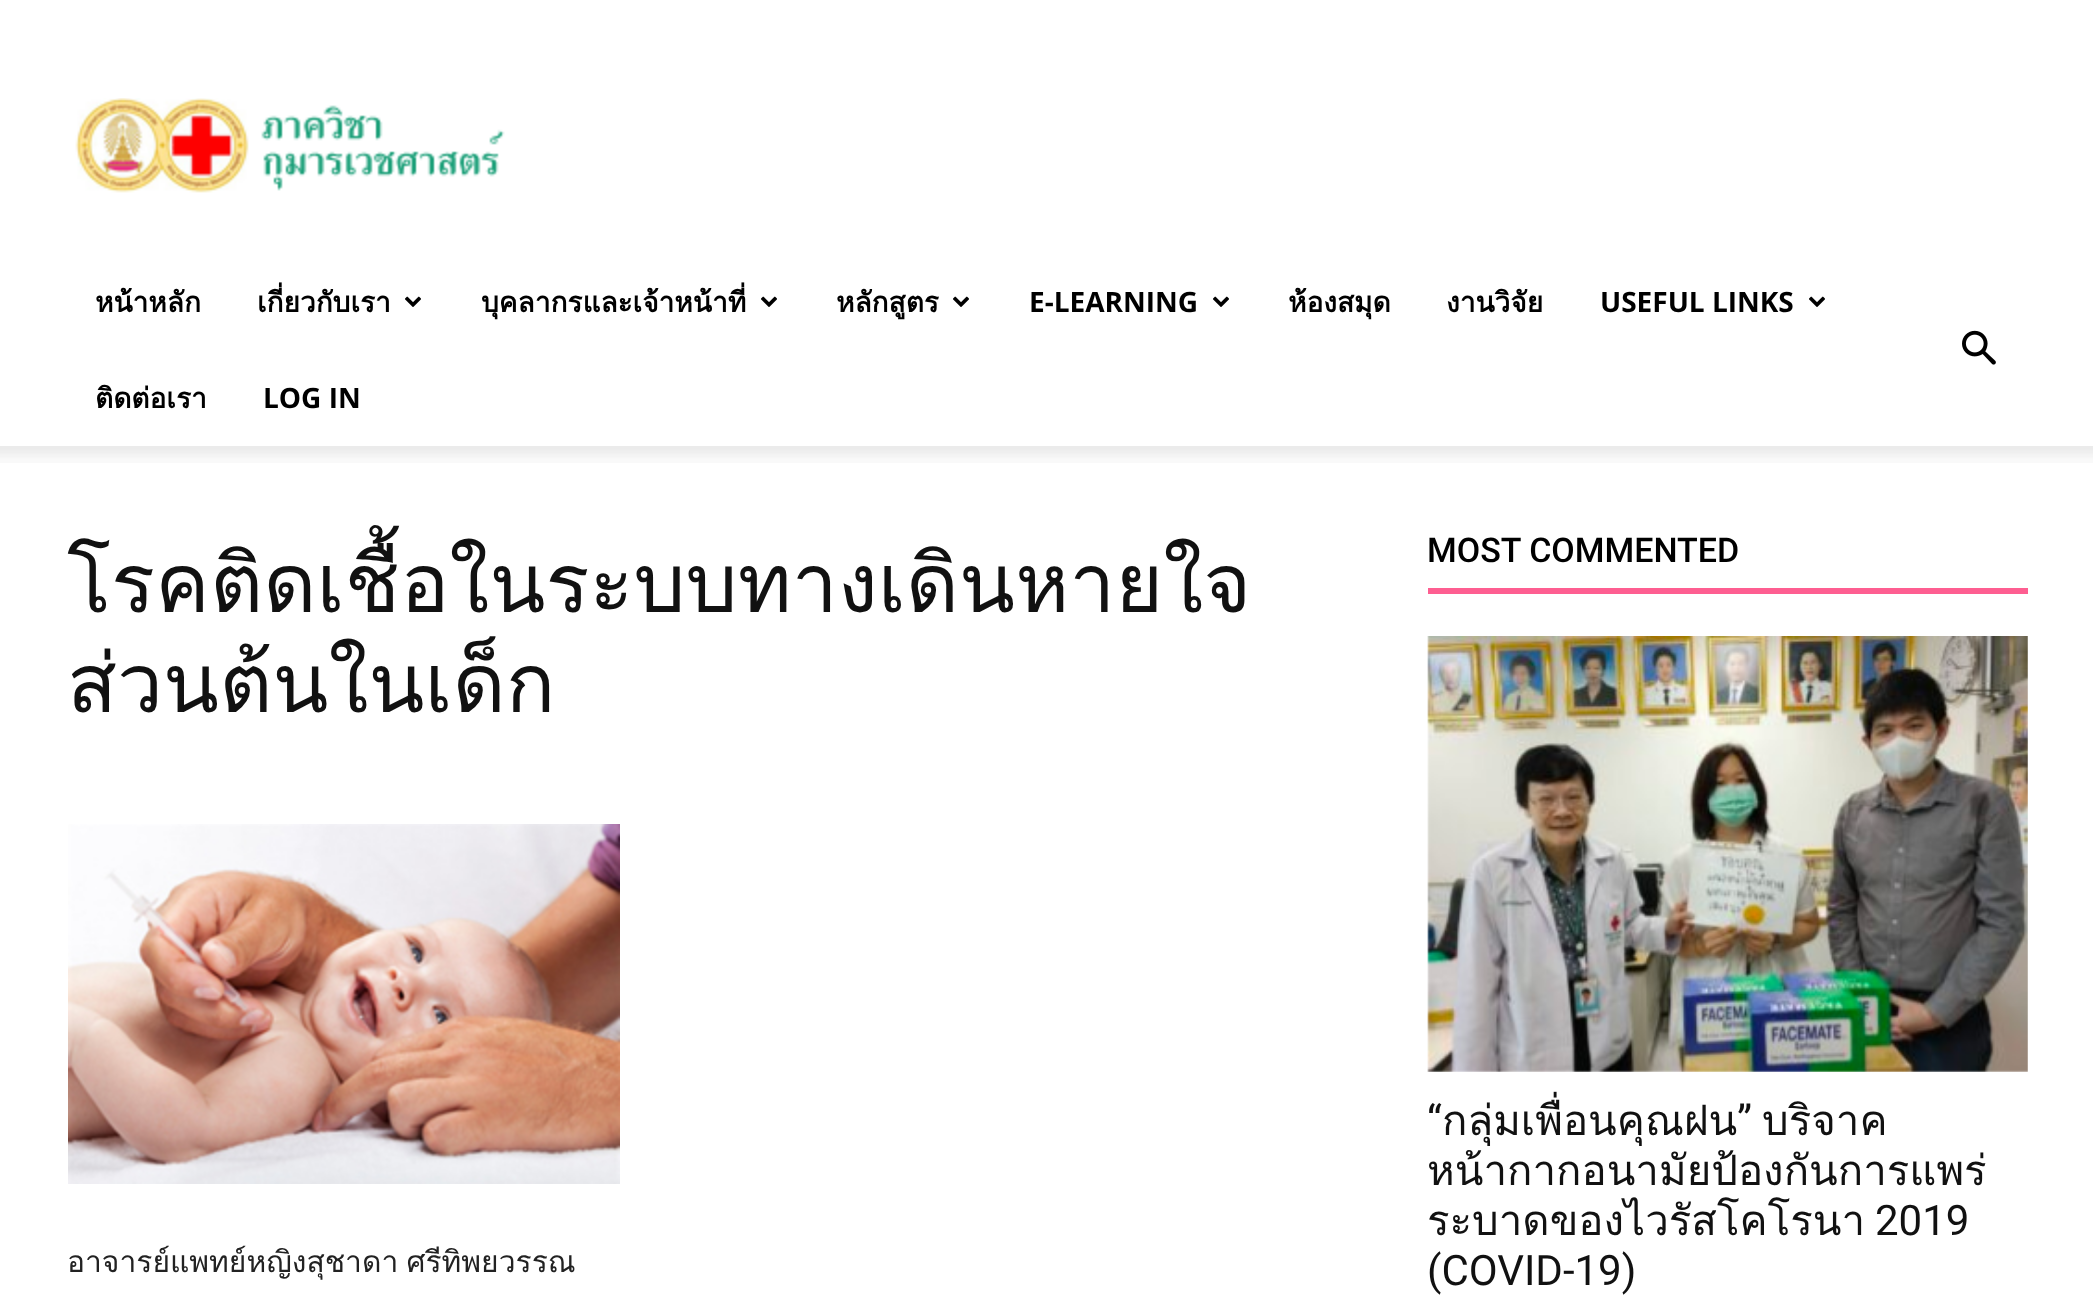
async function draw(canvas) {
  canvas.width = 2093;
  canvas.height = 1299;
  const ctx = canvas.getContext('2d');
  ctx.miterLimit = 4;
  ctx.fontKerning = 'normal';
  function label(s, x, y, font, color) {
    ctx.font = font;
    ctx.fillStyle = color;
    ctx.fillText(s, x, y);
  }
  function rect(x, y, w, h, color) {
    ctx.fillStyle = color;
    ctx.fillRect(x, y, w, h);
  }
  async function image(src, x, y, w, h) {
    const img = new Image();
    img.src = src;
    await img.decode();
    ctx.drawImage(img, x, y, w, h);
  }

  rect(0, 0, 2093, 1299, '#fff');
  await image('assets/img1.png', 75, 98, 430, 95);
  label('หน้าหลัก', 95, 312, 'bold 28px Loma', '#000');
  label('เกี่ยวกับเรา', 257, 312, 'bold 28px Loma', '#000');
  await image('assets/img2.png', 405, 296, 16, 11);
  label('บุคลากรและเจ้าหน้าที่', 481, 312, 'bold 28px Loma', '#000');
  await image('assets/img2.png', 761, 296, 16, 11);
  label('หลักสูตร', 836, 312, 'bold 28px Loma', '#000');
  await image('assets/img2.png', 953, 296, 16, 11);
  label('E-LEARNING', 1029, 312, 'bold 28px Open Sans', '#000');
  await image('assets/img2.png', 1213, 296, 16, 11);
  label('ห้องสมุด', 1288, 312, 'bold 28px Loma', '#000');
  label('งานวิจัย', 1446, 312, 'bold 28px Loma', '#000');
  label('USEFUL LINKS', 1600, 312, 'bold 28px Open Sans', '#000');
  await image('assets/img2.png', 1809, 296, 16, 11);
  label('ติดต่อเรา', 95, 408, 'bold 28px Loma', '#000');
  label('LOG IN', 263, 408, 'bold 28px Open Sans', '#000');
  await image('assets/img3.png', 1962, 330, 34, 35);
  await image('assets/img4.png', 0, 446, 2093, 17);
  label('โรคติดเชื้อในระบบทางเดินหายใจ', 67, 612, '82px Loma', '#111');
  label('ส่วนต้นในเด็ก', 67, 712, '82px Loma', '#111');
  await image('assets/img5.png', 68, 824, 552, 360);
  ctx.wordSpacing = '-2px';
  label('อาจารย์แพทย์หญิงสุชาดา ศรีทิพยวรรณ', 67, 1272, '30px Loma', '#222');
  ctx.wordSpacing = '0px';
  label('MOST COMMENTED', 1427, 562, '500 34px Roboto', '#000');
  rect(1428, 588, 600, 6, '#fe5e91');
  await image('assets/img6.png', 1427, 636, 601, 436);
  label('“', 1427, 1135, '42px Roboto', '#111');
  label('กลุ่มเพื่อนคุณฝน', 1442, 1135, '42px Loma', '#111');
  label('”', 1737, 1135, '42px Roboto', '#111');
  label('บริจาค', 1762, 1135, '42px Loma', '#111');
  label('หน้ากากอนามัยป้องกันการแพร่', 1427, 1185, '42px Loma', '#111');
  label('ระบาดของไวรัสโคโรนา', 1427, 1235, '42px Loma', '#111');
  label('2019', 1875, 1235, '42px Roboto', '#111');
  label('(COVID-19)', 1427, 1285, '42px Roboto', '#111');
}

draw(document.querySelector('canvas'));
